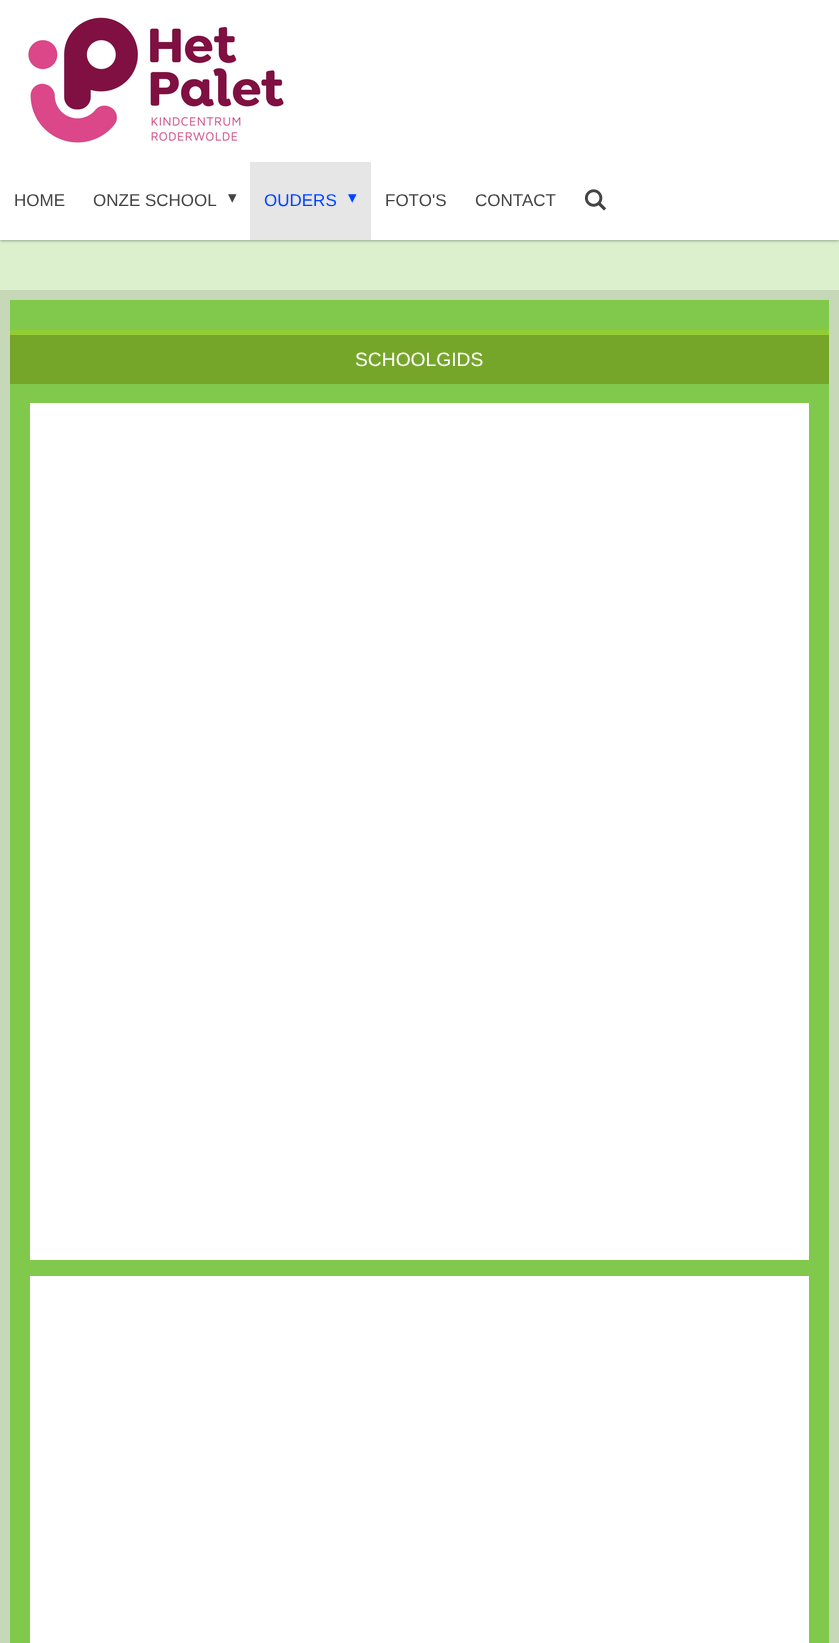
async function draw(canvas) {
  canvas.width = 839;
  canvas.height = 1643;
  const ctx = canvas.getContext('2d');
  ctx.miterLimit = 4;
  ctx.fontKerning = 'normal';
  function label(s, x, y, font, color) {
    ctx.font = font;
    ctx.fillStyle = color;
    ctx.fillText(s, x, y);
  }
  function rect(x, y, w, h, color) {
    ctx.fillStyle = color;
    ctx.fillRect(x, y, w, h);
  }
  async function image(src, x, y, w, h) {
    const img = new Image();
    img.src = src;
    await img.decode();
    ctx.drawImage(img, x, y, w, h);
  }

  rect(0, 0, 839, 1643, '#ddf0ce');
  ctx.fillStyle = '#0000004d';
  ctx.filter = 'blur(1.5px)';
  ctx.beginPath();
  ctx.rect(0, 1, 839, 240);
  ctx.fill();
  ctx.filter = 'none';
  rect(0, 0, 839, 240, '#fff');
  await image('assets/img1.png', 28, 17, 256, 126);
  label('HOME', 14, 206, '17px Liberation Sans', '#424242');
  label('ONZE SCHOOL', 93, 206, '17px Liberation Sans', '#424242');
  label('▾', 228, 203, '17px DejaVu Sans', '#424242');
  rect(250, 162, 121, 78, '#e6e6e6');
  label('OUDERS', 264, 206, '17px Liberation Sans', '#0043ff');
  label('▾', 348, 203, '17px DejaVu Sans', '#0043ff');
  label('FOTO\'S', 385, 206, '17px Liberation Sans', '#424242');
  label('CONTACT', 475, 206, '17px Liberation Sans', '#424242');
  await image('assets/img2.png', 584, 189, 23, 22);
  rect(0, 290, 839, 1353, '#c7d8b9');
  rect(10, 300, 819, 1343, '#81c94c');
  rect(10, 335, 819, 49, '#76a629');
  rect(10, 330, 819, 5, '#93cd35');
  label('SCHOOLGIDS', 355, 366, '19.25px Liberation Sans', '#fff');
  rect(30, 403, 779, 857, '#fff');
  rect(30, 1276, 779, 367, '#fff');
}

draw(document.querySelector('canvas'));
